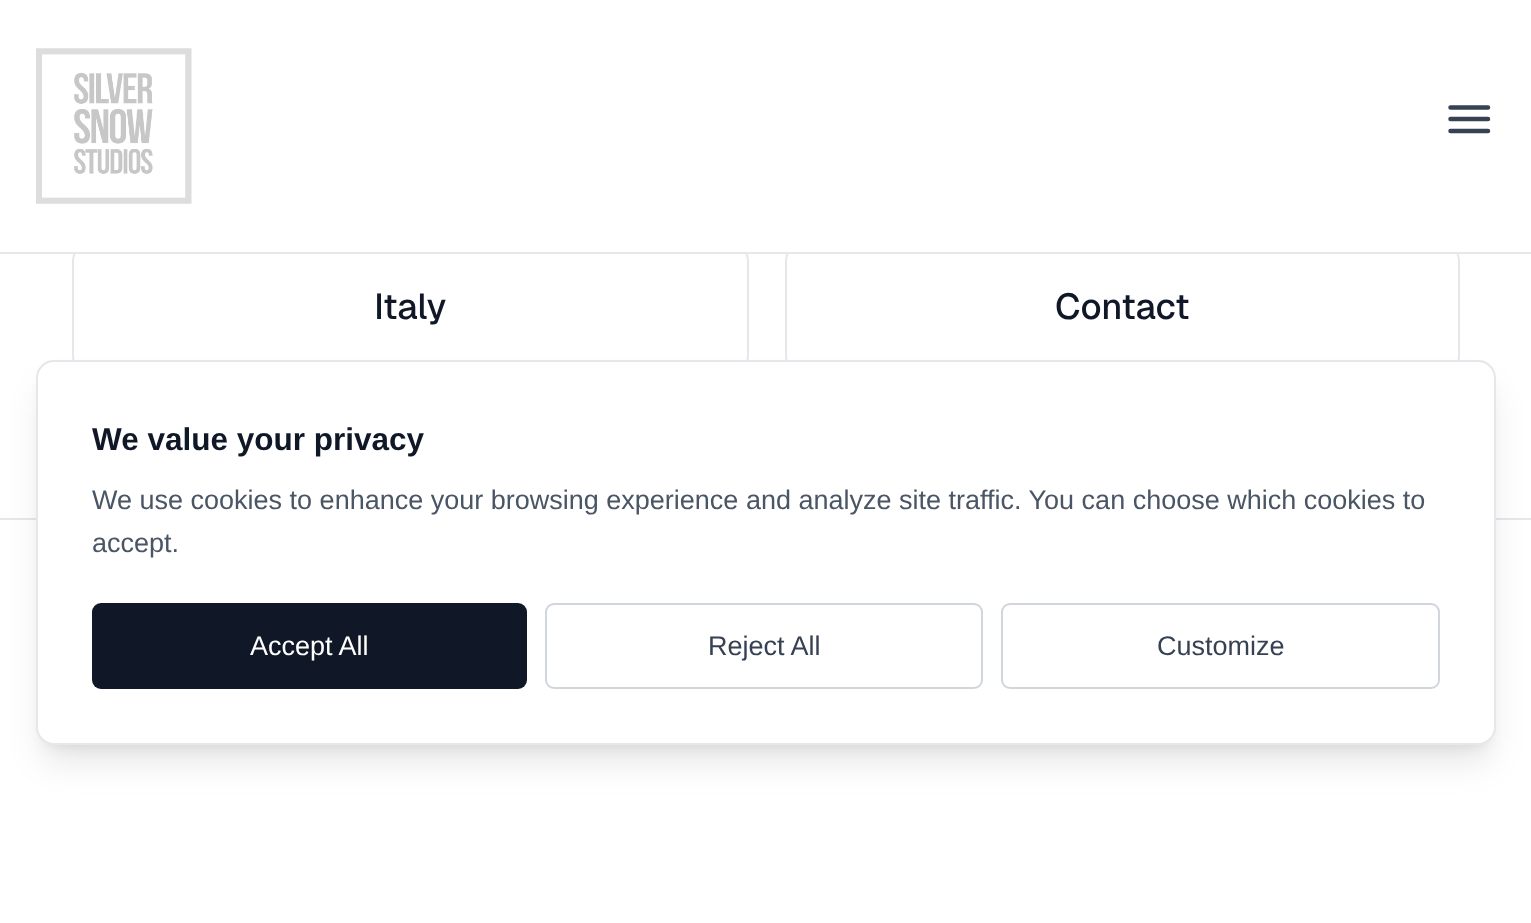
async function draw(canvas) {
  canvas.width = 1531;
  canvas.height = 923;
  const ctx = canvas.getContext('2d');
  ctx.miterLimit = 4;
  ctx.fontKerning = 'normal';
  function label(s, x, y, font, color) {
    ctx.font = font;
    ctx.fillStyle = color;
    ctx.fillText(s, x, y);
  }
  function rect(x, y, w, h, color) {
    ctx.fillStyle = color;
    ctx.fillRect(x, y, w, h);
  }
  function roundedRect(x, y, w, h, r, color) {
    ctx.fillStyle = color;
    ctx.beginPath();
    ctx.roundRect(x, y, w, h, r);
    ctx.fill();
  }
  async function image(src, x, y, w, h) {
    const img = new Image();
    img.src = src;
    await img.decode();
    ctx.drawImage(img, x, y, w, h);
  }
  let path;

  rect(0, 0, 1531, 923, '#fff');
  ctx.beginPath();
  ctx.roundRect(73, 244, 675, 129, 17);
  ctx.strokeStyle = '#e5e7eb';
  ctx.lineWidth = 2;
  ctx.stroke();
  ctx.beginPath();
  ctx.roundRect(786, 244, 673, 129, 17);
  ctx.stroke();
  rect(74, 243, 1384, 9, '#fff');
  rect(0, 252, 1531, 2, '#e5e7eb');
  await image('assets/img1.png', 36, 48, 156, 156);
  path = new Path2D('M1450.5 107.5H1488M1450.5 119H1488M1450.5 131H1488');
  ctx.strokeStyle = '#364153';
  ctx.lineWidth = 4.5;
  ctx.lineCap = 'round';
  ctx.lineJoin = 'round';
  ctx.stroke(path);
  label('Italy', 374, 319, '500 36px Geist', '#101828');
  label('Contact', 1055, 319, '500 36px Geist', '#101828');
  rect(0, 518, 1531, 2, '#e5e7eb');
  ctx.fillStyle = '#0000001a';
  ctx.filter = 'blur(7px)';
  ctx.beginPath();
  ctx.roundRect(45, 378, 1442, 367, 9);
  ctx.fill();
  ctx.filter = 'none';
  ctx.filter = 'blur(17px)';
  ctx.beginPath();
  ctx.roundRect(43, 389, 1447, 372, 11);
  ctx.fill();
  ctx.filter = 'none';
  ctx.fillStyle = '#fff';
  ctx.beginPath();
  ctx.roundRect(37, 361, 1458, 383, 17);
  ctx.fill();
  ctx.strokeStyle = '#e5e7eb';
  ctx.lineWidth = 2;
  ctx.lineJoin = 'miter';
  ctx.stroke();
  label('We value your privacy', 92, 450, 'bold 31.5px Liberation Sans', '#101828');
  label('We use cookies to enhance your browsing experience and analyze site traffic. You can choose which cookies to', 92, 509, '27px Liberation Sans', '#4a5565');
  label('accept.', 92, 552, '27px Liberation Sans', '#4a5565');
  roundedRect(92, 603, 435, 86, 9, '#101828');
  label('Accept All', 250, 655, '27px Liberation Sans', '#fff');
  ctx.beginPath();
  ctx.roundRect(546, 604, 436, 84, 8);
  ctx.strokeStyle = '#d1d5dc';
  ctx.stroke();
  label('Reject All', 708, 655, '27px Liberation Sans', '#364153');
  ctx.beginPath();
  ctx.roundRect(1002, 604, 437, 84, 8);
  ctx.stroke();
  label('Customize', 1157, 655, '27px Liberation Sans', '#364153');
}

draw(document.querySelector('canvas'));
